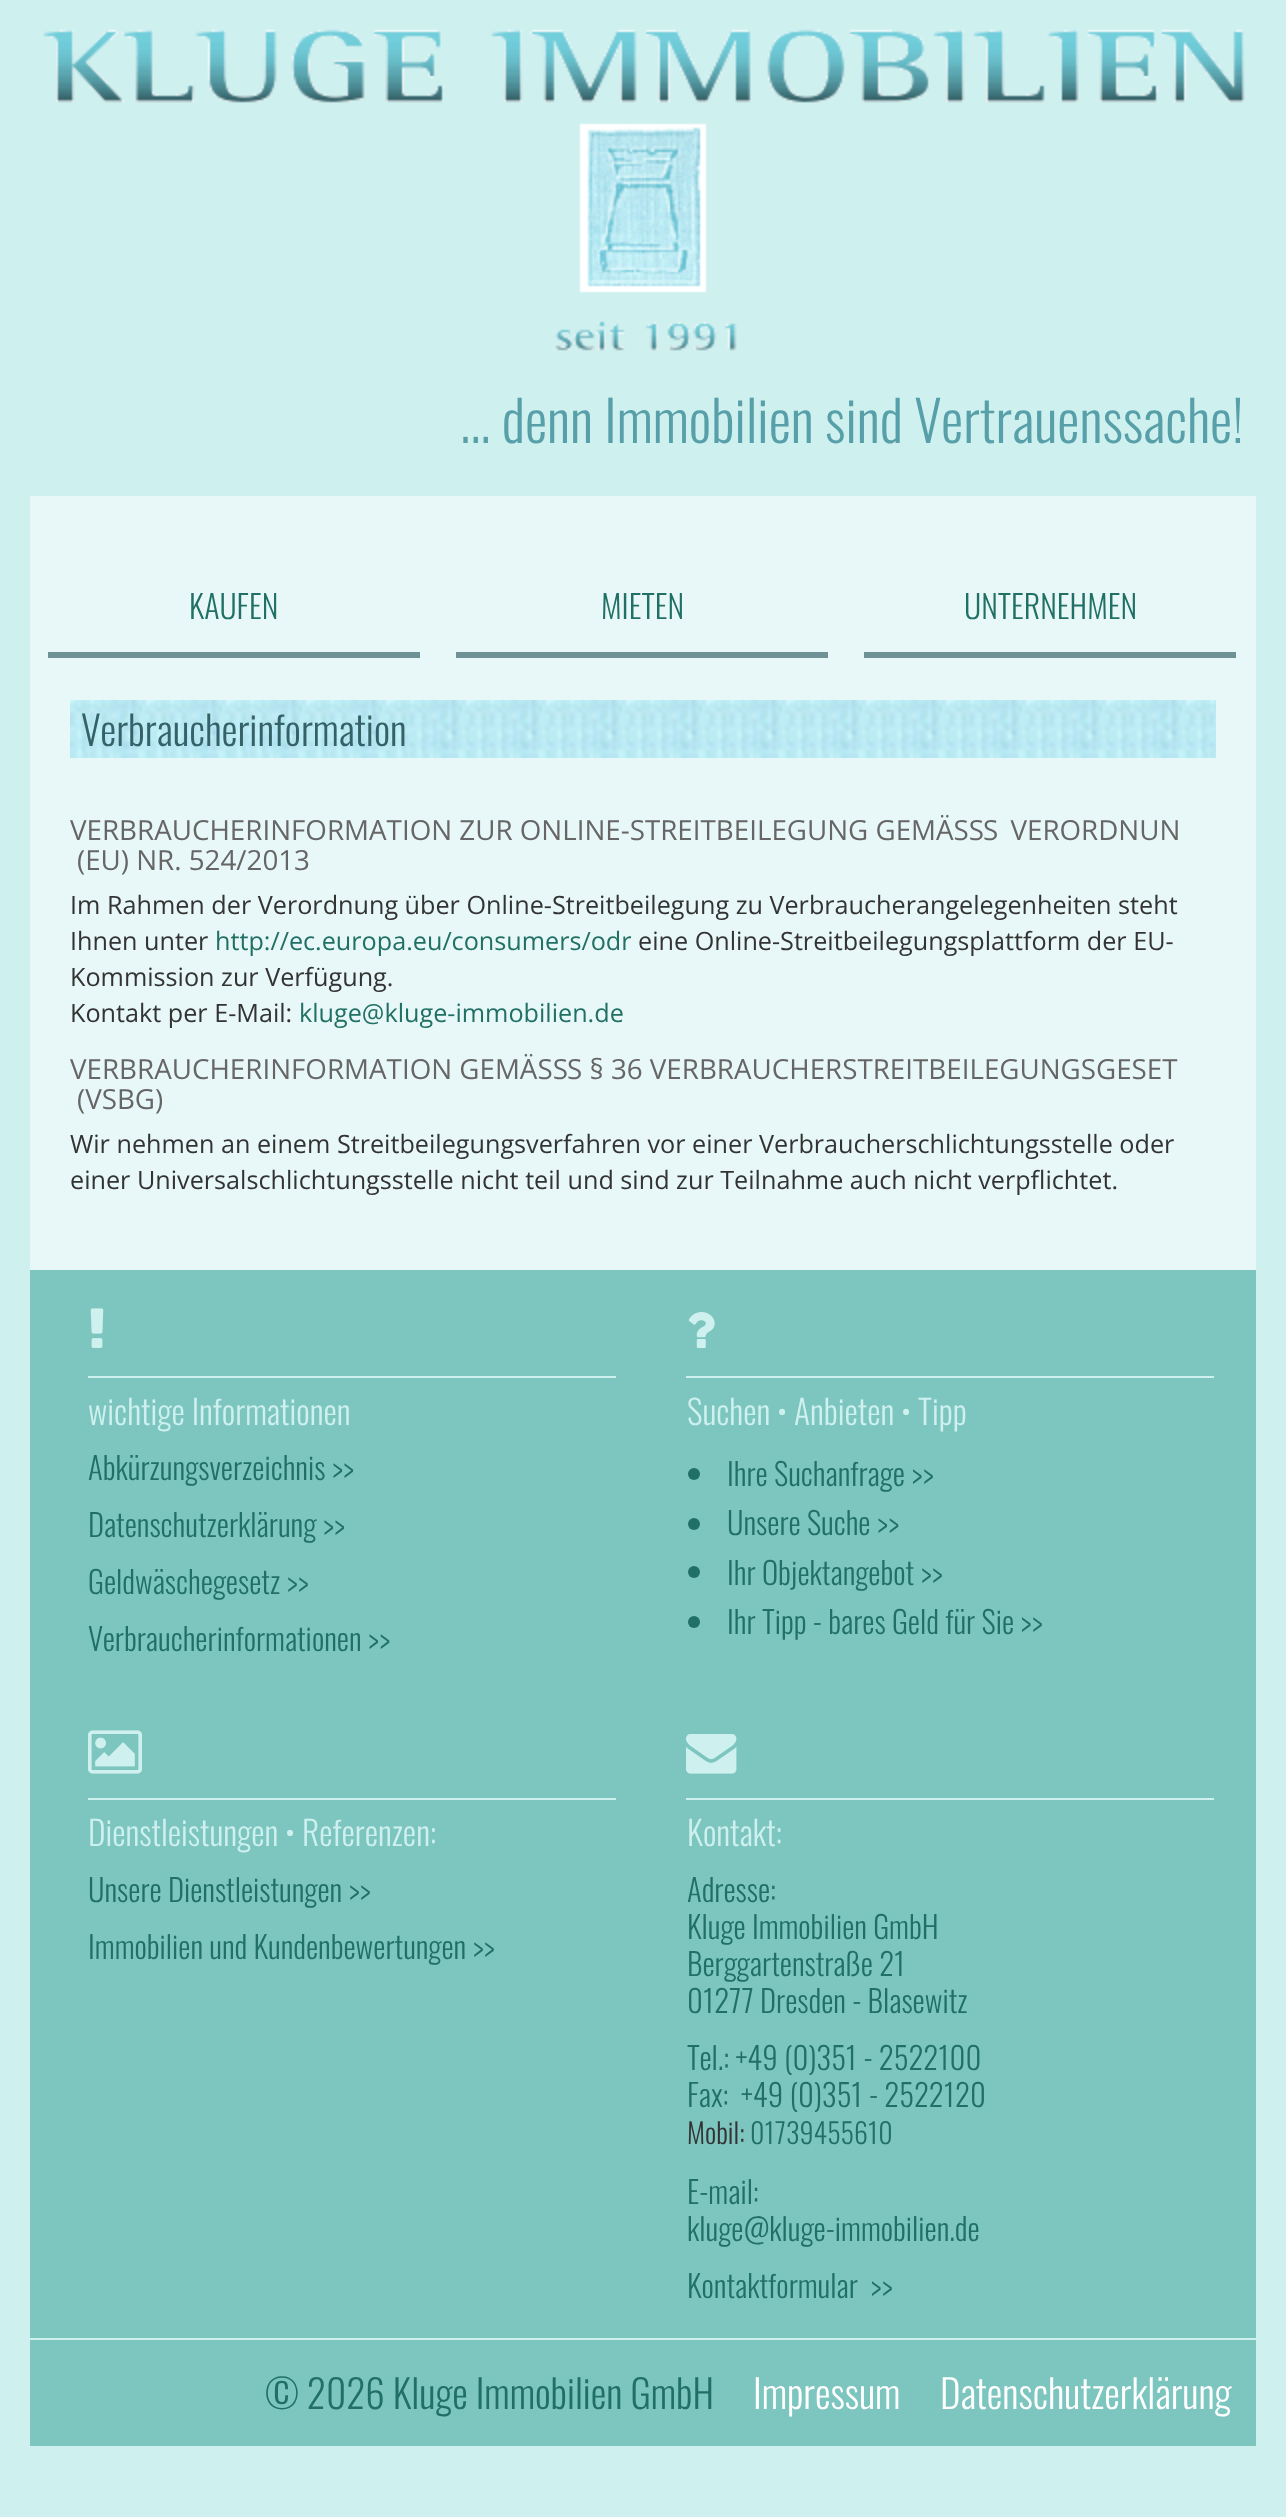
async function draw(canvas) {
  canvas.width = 1286;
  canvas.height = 2517;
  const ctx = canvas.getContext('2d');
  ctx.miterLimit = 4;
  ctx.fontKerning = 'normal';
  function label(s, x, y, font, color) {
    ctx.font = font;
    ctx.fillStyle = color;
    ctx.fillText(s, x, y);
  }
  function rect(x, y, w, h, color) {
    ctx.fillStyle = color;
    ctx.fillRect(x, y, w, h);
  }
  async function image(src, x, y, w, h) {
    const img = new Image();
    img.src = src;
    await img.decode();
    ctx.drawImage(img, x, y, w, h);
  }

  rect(0, 0, 1286, 2517, '#cef0ee');
  await image('assets/img1.png', 43, 29, 1202, 74);
  await image('assets/img2.png', 555, 123, 182, 228);
  label('... denn Immobilien sind Vertrauenssache!', 460, 443, '300 56px Oswald', '#57a0a9');
  rect(30, 496, 1226, 774, '#e8f8f8');
  rect(48, 652, 372, 6, '#6e9196');
  label('KAUFEN', 189, 619, '300 32px Oswald', '#207065');
  rect(456, 652, 372, 6, '#6e9196');
  label('MIETEN', 601, 619, '300 32px Oswald', '#207065');
  rect(864, 652, 372, 6, '#6e9196');
  label('UNTERNEHMEN', 964, 619, '300 32px Oswald', '#207065');
  await image('assets/img3.png', 70, 700, 1146, 58);
  label('Verbraucherinformation', 81, 746, '300 40.25px Oswald', '#356168');
  label('VERBRAUCHERINFORMATION ZUR ONLINE-STREITBEILEGUNG GEMÄSS', 70, 840, '27.75px Open Sans', '#666');
  ctx.wordSpacing = '5px';
  label('S VERORDNUN', 983, 840, '27.75px Open Sans', '#666');
  ctx.wordSpacing = '0px';
  label('(EU) NR. 524/2013', 77, 870, '27.75px Open Sans', '#666');
  label('Im Rahmen der Verordnung über Online-Streitbeilegung zu Verbraucherangelegenheiten steht', 70, 914, '25.2px Open Sans', '#333');
  label('Ihnen unter', 70, 950, '25.2px Open Sans', '#333');
  label('http://ec.europa.eu/consumers/odr', 215, 950, '25.2px Open Sans', '#207065');
  label('eine Online-Streitbeilegungsplattform der EU-', 638, 950, '25.2px Open Sans', '#333');
  label('Kommission zur Verfügung.', 70, 986, '25.2px Open Sans', '#333');
  label('Kontakt per E-Mail:', 70, 1022, '25.2px Open Sans', '#333');
  label('kluge@kluge-immobilien.de', 299, 1022, '25.2px Open Sans', '#207065');
  label('VERBRAUCHERINFORMATION GEMÄSS', 70, 1079, '27.75px Open Sans', '#666');
  label('S § 36 VERBRAUCHERSTREITBEILEGUNGSGESET', 567, 1079, '27.75px Open Sans', '#666');
  label('(VSBG)', 77, 1109, '27.75px Open Sans', '#666');
  label('Wir nehmen an einem Streitbeilegungsverfahren vor einer Verbraucherschlichtungsstelle oder', 70, 1153, '25.2px Open Sans', '#333');
  label('einer Universalschlichtungsstelle nicht teil und sind zur Teilnahme auch nicht verpflichtet.', 70, 1189, '25.2px Open Sans', '#333');
  rect(30, 1270, 1226, 1068, '#7dc6c0');
  await image('assets/img4.png', 90, 1308, 14, 40);
  rect(88, 1376, 528, 2, '#cef0ee');
  label('wichtige Informationen', 88, 1425, '300 33.6px Oswald', '#cef0ee');
  label('Abkürzungsverzeichnis >>', 88, 1480, '300 30.75px Oswald', '#207065');
  label('Datenschutzerklärung >>', 88, 1537, '300 30.75px Oswald', '#207065');
  label('Geldwäschegesetz >>', 88, 1594, '300 30.75px Oswald', '#207065');
  label('Verbraucherinformationen >>', 88, 1651, '300 30.75px Oswald', '#207065');
  await image('assets/img5.png', 688, 1312, 27, 36);
  rect(686, 1376, 528, 2, '#cef0ee');
  label('Suchen • Anbieten • Tipp', 687, 1425, '300 33.6px Oswald', '#cef0ee');
  ctx.fillStyle = '#207065';
  ctx.beginPath();
  ctx.arc(694, 1474, 6, 0, 2 * Math.PI);
  ctx.fill();
  label('Ihre Suchanfrage >>', 727, 1486, '300 30.75px Oswald', '#207065');
  ctx.beginPath();
  ctx.arc(694, 1524, 6, 0, 2 * Math.PI);
  ctx.fill();
  label('Unsere Suche >>', 727, 1535, '300 30.75px Oswald', '#207065');
  ctx.beginPath();
  ctx.arc(694, 1572, 6, 0, 2 * Math.PI);
  ctx.fill();
  label('Ihr Objektangebot >>', 727, 1585, '300 30.75px Oswald', '#207065');
  ctx.beginPath();
  ctx.arc(694, 1622, 6, 0, 2 * Math.PI);
  ctx.fill();
  label('Ihr Tipp - bares Geld für Sie >>', 727, 1634, '300 30.75px Oswald', '#207065');
  await image('assets/img6.png', 88, 1730, 54, 44);
  rect(88, 1798, 528, 2, '#cef0ee');
  label('Dienstleistungen • Referenzen:', 88, 1846, '300 33.6px Oswald', '#cef0ee');
  label('Unsere Dienstleistungen >>', 88, 1902, '300 30.75px Oswald', '#207065');
  label('Immobilien und Kundenbewertungen >>', 88, 1959, '300 30.75px Oswald', '#207065');
  await image('assets/img7.png', 686, 1734, 51, 40);
  rect(686, 1798, 528, 2, '#cef0ee');
  label('Kontakt:', 687, 1846, '300 33.6px Oswald', '#cef0ee');
  label('Adresse:', 687, 1902, '300 30.75px Oswald', '#207065');
  label('Kluge Immobilien GmbH', 687, 1939, '300 30.75px Oswald', '#207065');
  label('Berggartenstraße 21', 687, 1976, '300 30.75px Oswald', '#207065');
  label('01277 Dresden - Blasewitz', 687, 2013, '300 30.75px Oswald', '#207065');
  label('Tel.: +49 (0)351 - 2522100', 687, 2070, '300 30.75px Oswald', '#207065');
  label('Fax:', 687, 2107, '300 30.75px Oswald', '#207065');
  label('+49 (0)351 - 2522120', 741, 2107, '300 30.75px Oswald', '#207065');
  label('Mobil:', 687, 2144, '300 28px Oswald', '#333');
  label('01739455610', 750, 2144, '300 28px Oswald', '#207065');
  label('E-mail:', 687, 2204, '300 30.75px Oswald', '#207065');
  label('kluge@kluge-immobilien.de', 687, 2241, '300 30.75px Oswald', '#207065');
  label('Kontaktformular  >>', 687, 2298, '300 30.75px Oswald', '#207065');
  rect(30, 2340, 1226, 106, '#7dc6c0');
  label('© 2026 Kluge Immobilien GmbH', 265, 2409, '300 39.25px Oswald', '#207065');
  label('Impressum', 753, 2409, '300 39.25px Oswald', '#fff');
  label('Datenschutzerklärung', 940, 2409, '300 39.25px Oswald', '#fff');
}

draw(document.querySelector('canvas'));
